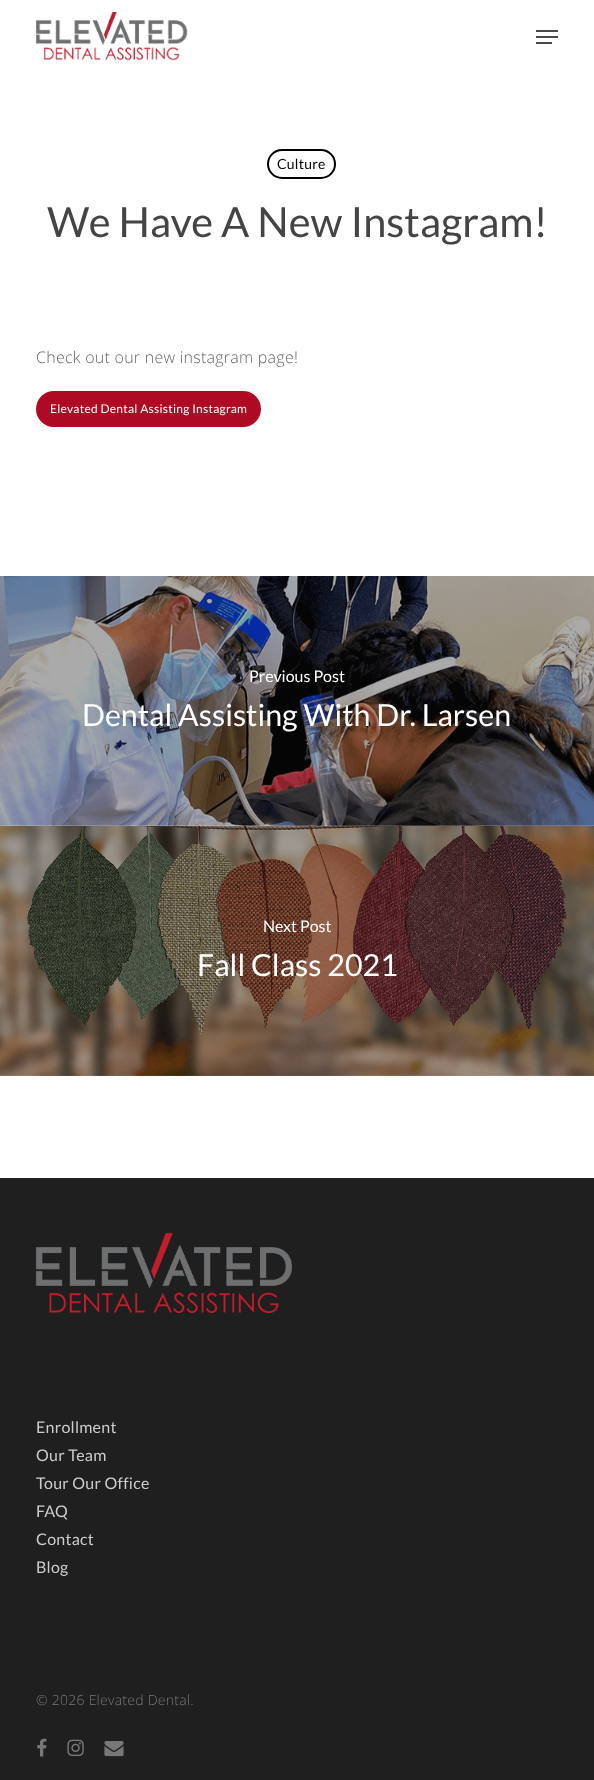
async function draw(canvas) {
  canvas.width = 594;
  canvas.height = 1780;
  const ctx = canvas.getContext('2d');
  ctx.miterLimit = 4;
  ctx.fontKerning = 'normal';
  function label(s, x, y, font, color) {
    ctx.font = font;
    ctx.fillStyle = color;
    ctx.fillText(s, x, y);
  }
  function rect(x, y, w, h, color) {
    ctx.fillStyle = color;
    ctx.fillRect(x, y, w, h);
  }
  function roundedRect(x, y, w, h, r, color) {
    ctx.fillStyle = color;
    ctx.beginPath();
    ctx.roundRect(x, y, w, h, r);
    ctx.fill();
  }
  async function image(src, x, y, w, h) {
    const img = new Image();
    img.src = src;
    await img.decode();
    ctx.drawImage(img, x, y, w, h);
  }

  rect(0, 0, 594, 1780, '#fff');
  await image('assets/img1.png', 35, 12, 153, 49);
  rect(536, 30, 22, 2, '#494949');
  rect(536, 42, 16, 2, '#494949');
  rect(536, 36, 22, 2, '#494949');
  ctx.beginPath();
  ctx.roundRect(268, 150, 67, 28, 14);
  ctx.strokeStyle = '#000';
  ctx.lineWidth = 2;
  ctx.stroke();
  ctx.letterSpacing = '0.25px';
  label('Culture', 277, 169, '14px Lato', '#000');
  ctx.letterSpacing = '0px';
  label('We Have A New Instagram!', 47, 237, '41.6px Lato', '#444');
  ctx.letterSpacing = '0.25px';
  label('Check out our new instagram page!', 36, 363, '300 16px Open Sans', '#676767');
  roundedRect(36, 391, 225, 36, 18, '#ae0a23');
  label('Elevated Dental Assisting Instagram', 50, 413, '12px Lato', '#fff');
  await image('assets/img2.png', 0, 576, 594, 250);
  ctx.letterSpacing = '0px';
  label('Previous Post', 249, 682, '16px Lato', '#fff');
  label('Dental Assisting With Dr. Larsen', 82, 726, '30.4px Lato', '#fff');
  await image('assets/img3.png', 0, 826, 594, 250);
  label('Next Post', 263, 932, '16px Lato', '#fff');
  label('Fall Class 2021', 197, 976, '30.4px Lato', '#fff');
  rect(0, 1178, 594, 602, '#1f1f1f');
  await image('assets/img4.png', 35, 1232, 257, 82);
  ctx.letterSpacing = '0.25px';
  label('Enrollment', 36, 1433, '16px Lato', '#ccc');
  label('Our Team', 36, 1461, '16px Lato', '#ccc');
  label('Tour Our Office', 36, 1489, '16px Lato', '#ccc');
  label('FAQ', 36, 1517, '16px Lato', '#ccc');
  label('Contact', 36, 1545, '16px Lato', '#ccc');
  label('Blog', 36, 1573, '16px Lato', '#ccc');
  label('© 2026 Elevated Dental.', 36, 1705, '300 14px Open Sans', '#777');
  await image('assets/img5.png', 37, 1738, 10, 19);
  await image('assets/img6.png', 67, 1739, 17, 18);
  await image('assets/img7.png', 104, 1741, 20, 16);
}

draw(document.querySelector('canvas'));
